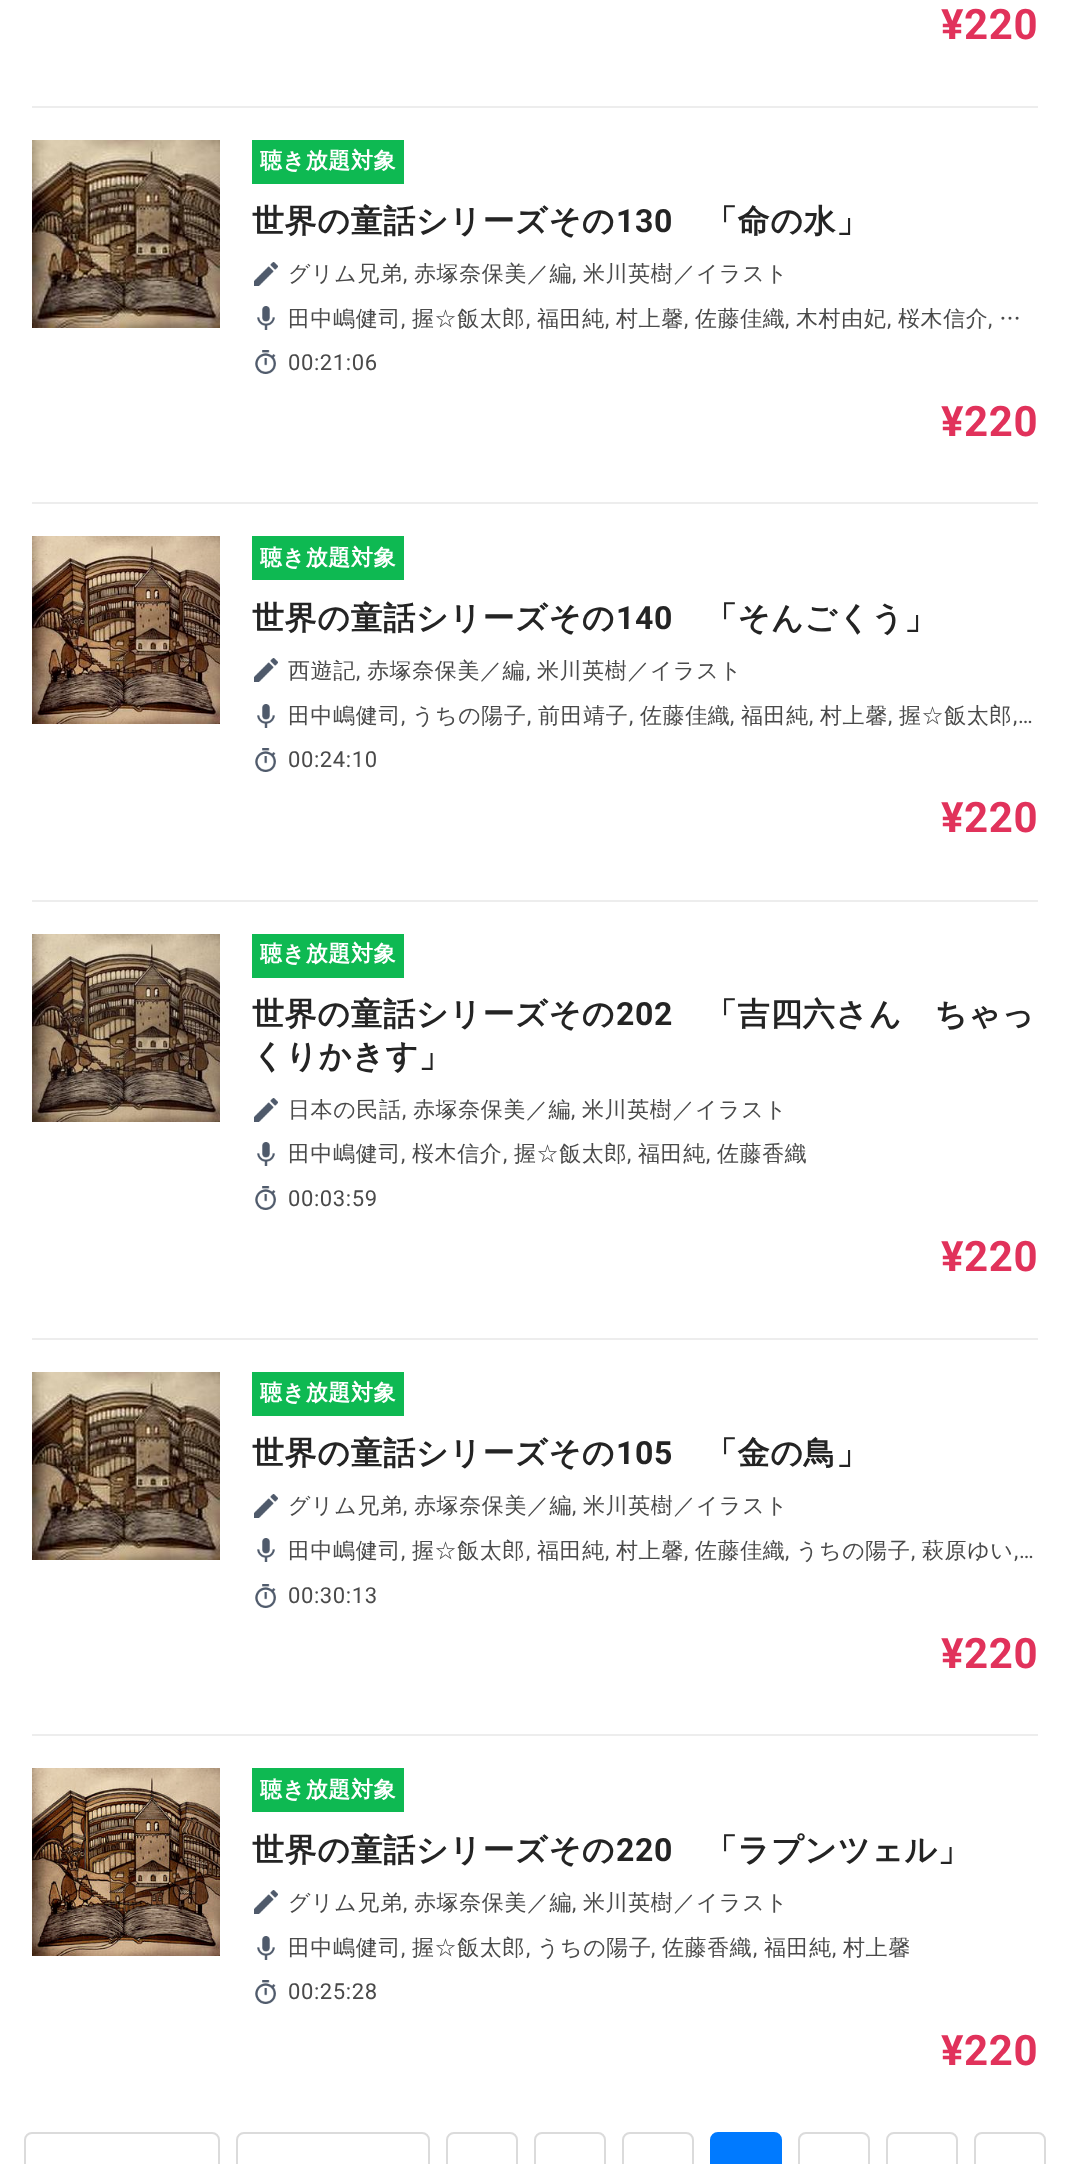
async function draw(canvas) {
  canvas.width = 1069;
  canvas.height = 2164;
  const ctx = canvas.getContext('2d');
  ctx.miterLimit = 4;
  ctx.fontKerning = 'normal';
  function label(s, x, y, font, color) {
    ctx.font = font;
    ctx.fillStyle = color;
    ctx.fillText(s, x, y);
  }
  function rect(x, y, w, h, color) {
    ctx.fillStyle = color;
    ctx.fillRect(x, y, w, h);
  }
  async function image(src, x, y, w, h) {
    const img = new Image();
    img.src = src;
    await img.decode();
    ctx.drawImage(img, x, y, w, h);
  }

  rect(0, 0, 1069, 2164, '#fff');
  ctx.letterSpacing = '0.6px';
  label('¥220', 941, 39, 'bold 42px Roboto', '#e1325b');
  rect(32, 106, 1006, 2, '#ededed');
  await image('assets/img1.png', 32, 140, 188, 188);
  rect(252, 140, 152, 44, '#0eb952');
  label('聴き放題対象', 260, 168, 'bold 22px WenQuanYi Zen Hei', '#fff');
  label('世界の童話シリーズその', 252, 232, 'bold 32px WenQuanYi Zen Hei', '#242424');
  label('130', 616, 232, 'bold 32px Roboto', '#242424');
  label('「命の水」', 705, 232, 'bold 32px WenQuanYi Zen Hei', '#242424');
  await image('assets/img2.png', 254, 262, 24, 24);
  label('グリム兄弟', 288, 281, '500 22px WenQuanYi Zen Hei', '#4a4a4a');
  label(',', 403, 281, '22px Roboto', '#4a4a4a');
  label('赤塚奈保美／編', 414, 281, '500 22px WenQuanYi Zen Hei', '#4a4a4a');
  label(',', 572, 281, '22px Roboto', '#4a4a4a');
  label('米川英樹／イラスト', 583, 281, '500 22px WenQuanYi Zen Hei', '#4a4a4a');
  await image('assets/img3.png', 257, 306, 18, 24);
  label('田中嶋健司', 288, 326, '500 22px WenQuanYi Zen Hei', '#4a4a4a');
  label('握☆飯太郎', 412, 326, '500 22px WenQuanYi Zen Hei', '#4a4a4a');
  label('福田純', 537, 326, '500 22px WenQuanYi Zen Hei', '#4a4a4a');
  label('村上馨', 616, 326, '500 22px WenQuanYi Zen Hei', '#4a4a4a');
  label('佐藤佳織', 695, 326, '500 22px WenQuanYi Zen Hei', '#4a4a4a');
  label('木村由妃', 796, 326, '500 22px WenQuanYi Zen Hei', '#4a4a4a');
  label('桜木信介', 898, 326, '500 22px WenQuanYi Zen Hei', '#4a4a4a');
  label('…', 999, 326, '500 22px WenQuanYi Zen Hei', '#4a4a4a');
  label(',', 401, 326, '22px Roboto', '#4a4a4a');
  label(',', 526, 326, '22px Roboto', '#4a4a4a');
  label(',', 605, 326, '22px Roboto', '#4a4a4a');
  label(',', 684, 326, '22px Roboto', '#4a4a4a');
  label(',', 785, 326, '22px Roboto', '#4a4a4a');
  label(',', 887, 326, '22px Roboto', '#4a4a4a');
  label(',', 988, 326, '22px Roboto', '#4a4a4a');
  await image('assets/img4.png', 255, 350, 21, 24);
  label('00:21:06', 288, 370, '22px Roboto', '#4a4a4a');
  label('¥220', 941, 436, 'bold 42px Roboto', '#e1325b');
  rect(32, 502, 1006, 2, '#ededed');
  await image('assets/img5.png', 32, 536, 188, 188);
  rect(252, 536, 152, 44, '#0eb952');
  label('聴き放題対象', 260, 565, 'bold 22px WenQuanYi Zen Hei', '#fff');
  label('世界の童話シリーズその', 252, 629, 'bold 32px WenQuanYi Zen Hei', '#242424');
  label('140', 616, 629, 'bold 32px Roboto', '#242424');
  label('「そんごくう」', 705, 629, 'bold 32px WenQuanYi Zen Hei', '#242424');
  await image('assets/img2.png', 254, 658, 24, 24);
  label('西遊記', 288, 678, '500 22px WenQuanYi Zen Hei', '#4a4a4a');
  label(',', 356, 678, '22px Roboto', '#4a4a4a');
  label('赤塚奈保美／編', 367, 678, '500 22px WenQuanYi Zen Hei', '#4a4a4a');
  label(',', 526, 678, '22px Roboto', '#4a4a4a');
  label('米川英樹／イラスト', 537, 678, '500 22px WenQuanYi Zen Hei', '#4a4a4a');
  await image('assets/img3.png', 257, 704, 18, 24);
  label('田中嶋健司', 288, 723, '500 22px WenQuanYi Zen Hei', '#4a4a4a');
  label(',', 401, 723, '22px Roboto', '#4a4a4a');
  label('うちの陽子', 412, 723, '500 22px WenQuanYi Zen Hei', '#4a4a4a');
  label(',', 527, 723, '22px Roboto', '#4a4a4a');
  label('前田靖子', 538, 723, '500 22px WenQuanYi Zen Hei', '#4a4a4a');
  label(',', 629, 723, '22px Roboto', '#4a4a4a');
  label('佐藤佳織', 640, 723, '500 22px WenQuanYi Zen Hei', '#4a4a4a');
  label(',', 730, 723, '22px Roboto', '#4a4a4a');
  label('福田純', 741, 723, '500 22px WenQuanYi Zen Hei', '#4a4a4a');
  label(',', 809, 723, '22px Roboto', '#4a4a4a');
  label('村上馨', 820, 723, '500 22px WenQuanYi Zen Hei', '#4a4a4a');
  label(',', 888, 723, '22px Roboto', '#4a4a4a');
  label('握☆飯太郎', 899, 723, '500 22px WenQuanYi Zen Hei', '#4a4a4a');
  label(',…', 1013, 723, '22px Roboto', '#4a4a4a');
  await image('assets/img4.png', 255, 748, 21, 24);
  label('00:24:10', 288, 767, '22px Roboto', '#4a4a4a');
  label('¥220', 941, 832, 'bold 42px Roboto', '#e1325b');
  rect(32, 900, 1006, 2, '#ededed');
  await image('assets/img6.png', 32, 934, 188, 188);
  rect(252, 934, 152, 44, '#0eb952');
  label('聴き放題対象', 260, 961, 'bold 22px WenQuanYi Zen Hei', '#fff');
  label('世界の童話シリーズその', 252, 1025, 'bold 32px WenQuanYi Zen Hei', '#242424');
  label('202', 616, 1025, 'bold 32px Roboto', '#242424');
  label('「吉四六さん　ちゃっ', 705, 1025, 'bold 32px WenQuanYi Zen Hei', '#242424');
  label('くりかきす」', 252, 1067, 'bold 32px WenQuanYi Zen Hei', '#242424');
  await image('assets/img2.png', 254, 1098, 24, 24);
  label('日本の民話', 288, 1117, '500 22px WenQuanYi Zen Hei', '#4a4a4a');
  label(',', 402, 1117, '22px Roboto', '#4a4a4a');
  label('赤塚奈保美／編', 413, 1117, '500 22px WenQuanYi Zen Hei', '#4a4a4a');
  label(',', 571, 1117, '22px Roboto', '#4a4a4a');
  label('米川英樹／イラスト', 582, 1117, '500 22px WenQuanYi Zen Hei', '#4a4a4a');
  await image('assets/img3.png', 257, 1142, 18, 24);
  label('田中嶋健司', 288, 1161, '500 22px WenQuanYi Zen Hei', '#4a4a4a');
  label(',', 401, 1161, '22px Roboto', '#4a4a4a');
  label('桜木信介', 412, 1161, '500 22px WenQuanYi Zen Hei', '#4a4a4a');
  label(',', 503, 1161, '22px Roboto', '#4a4a4a');
  label('握☆飯太郎', 514, 1161, '500 22px WenQuanYi Zen Hei', '#4a4a4a');
  label(',', 627, 1161, '22px Roboto', '#4a4a4a');
  label('福田純', 638, 1161, '500 22px WenQuanYi Zen Hei', '#4a4a4a');
  label(',', 706, 1161, '22px Roboto', '#4a4a4a');
  label('佐藤香織', 717, 1161, '500 22px WenQuanYi Zen Hei', '#4a4a4a');
  await image('assets/img4.png', 255, 1186, 21, 24);
  label('00:03:59', 288, 1206, '22px Roboto', '#4a4a4a');
  label('¥220', 941, 1271, 'bold 42px Roboto', '#e1325b');
  rect(32, 1338, 1006, 2, '#ededed');
  await image('assets/img7.png', 32, 1372, 188, 188);
  rect(252, 1372, 152, 44, '#0eb952');
  label('聴き放題対象', 260, 1400, 'bold 22px WenQuanYi Zen Hei', '#fff');
  label('世界の童話シリーズその', 252, 1464, 'bold 32px WenQuanYi Zen Hei', '#242424');
  label('105', 616, 1464, 'bold 32px Roboto', '#242424');
  label('「金の鳥」', 705, 1464, 'bold 32px WenQuanYi Zen Hei', '#242424');
  await image('assets/img2.png', 254, 1494, 24, 24);
  label('グリム兄弟', 288, 1513, '500 22px WenQuanYi Zen Hei', '#4a4a4a');
  label(',', 403, 1513, '22px Roboto', '#4a4a4a');
  label('赤塚奈保美／編', 414, 1513, '500 22px WenQuanYi Zen Hei', '#4a4a4a');
  label(',', 572, 1513, '22px Roboto', '#4a4a4a');
  label('米川英樹／イラスト', 583, 1513, '500 22px WenQuanYi Zen Hei', '#4a4a4a');
  await image('assets/img3.png', 257, 1538, 18, 24);
  label('田中嶋健司', 288, 1558, '500 22px WenQuanYi Zen Hei', '#4a4a4a');
  label(',', 401, 1558, '22px Roboto', '#4a4a4a');
  label('握☆飯太郎', 412, 1558, '500 22px WenQuanYi Zen Hei', '#4a4a4a');
  label(',', 526, 1558, '22px Roboto', '#4a4a4a');
  label('福田純', 537, 1558, '500 22px WenQuanYi Zen Hei', '#4a4a4a');
  label(',', 605, 1558, '22px Roboto', '#4a4a4a');
  label('村上馨', 616, 1558, '500 22px WenQuanYi Zen Hei', '#4a4a4a');
  label(',', 684, 1558, '22px Roboto', '#4a4a4a');
  label('佐藤佳織', 695, 1558, '500 22px WenQuanYi Zen Hei', '#4a4a4a');
  label(',', 785, 1558, '22px Roboto', '#4a4a4a');
  label('うちの陽子', 796, 1558, '500 22px WenQuanYi Zen Hei', '#4a4a4a');
  label(',', 911, 1558, '22px Roboto', '#4a4a4a');
  label('萩原ゆい', 922, 1558, '500 22px WenQuanYi Zen Hei', '#4a4a4a');
  label(',…', 1014, 1558, '22px Roboto', '#4a4a4a');
  await image('assets/img4.png', 255, 1584, 21, 24);
  label('00:30:13', 288, 1603, '22px Roboto', '#4a4a4a');
  label('¥220', 941, 1668, 'bold 42px Roboto', '#e1325b');
  rect(32, 1734, 1006, 2, '#ededed');
  await image('assets/img8.png', 32, 1768, 188, 188);
  rect(252, 1768, 152, 44, '#0eb952');
  label('聴き放題対象', 260, 1797, 'bold 22px WenQuanYi Zen Hei', '#fff');
  label('世界の童話シリーズその', 252, 1861, 'bold 32px WenQuanYi Zen Hei', '#242424');
  label('220', 616, 1861, 'bold 32px Roboto', '#242424');
  label('「ラプンツェル」', 705, 1861, 'bold 32px WenQuanYi Zen Hei', '#242424');
  await image('assets/img2.png', 254, 1890, 24, 24);
  label('グリム兄弟', 288, 1910, '500 22px WenQuanYi Zen Hei', '#4a4a4a');
  label(',', 403, 1910, '22px Roboto', '#4a4a4a');
  label('赤塚奈保美／編', 414, 1910, '500 22px WenQuanYi Zen Hei', '#4a4a4a');
  label(',', 572, 1910, '22px Roboto', '#4a4a4a');
  label('米川英樹／イラスト', 583, 1910, '500 22px WenQuanYi Zen Hei', '#4a4a4a');
  await image('assets/img3.png', 257, 1936, 18, 24);
  label('田中嶋健司', 288, 1955, '500 22px WenQuanYi Zen Hei', '#4a4a4a');
  label(',', 401, 1955, '22px Roboto', '#4a4a4a');
  label('握☆飯太郎', 412, 1955, '500 22px WenQuanYi Zen Hei', '#4a4a4a');
  label(',', 526, 1955, '22px Roboto', '#4a4a4a');
  label('うちの陽子', 537, 1955, '500 22px WenQuanYi Zen Hei', '#4a4a4a');
  label(',', 651, 1955, '22px Roboto', '#4a4a4a');
  label('佐藤香織', 662, 1955, '500 22px WenQuanYi Zen Hei', '#4a4a4a');
  label(',', 753, 1955, '22px Roboto', '#4a4a4a');
  label('福田純', 764, 1955, '500 22px WenQuanYi Zen Hei', '#4a4a4a');
  label(',', 832, 1955, '22px Roboto', '#4a4a4a');
  label('村上馨', 843, 1955, '500 22px WenQuanYi Zen Hei', '#4a4a4a');
  await image('assets/img4.png', 255, 1980, 21, 24);
  label('00:25:28', 288, 1999, '22px Roboto', '#4a4a4a');
  label('¥220', 941, 2065, 'bold 42px Roboto', '#e1325b');
  ctx.beginPath();
  ctx.roundRect(25, 2133, 194, 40, 7);
  ctx.strokeStyle = '#dbdbdb';
  ctx.lineWidth = 2;
  ctx.stroke();
  ctx.beginPath();
  ctx.roundRect(237, 2133, 192, 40, 7);
  ctx.stroke();
  ctx.beginPath();
  ctx.roundRect(447, 2133, 70, 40, 7);
  ctx.stroke();
  ctx.beginPath();
  ctx.roundRect(535, 2133, 70, 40, 7);
  ctx.stroke();
  ctx.beginPath();
  ctx.roundRect(623, 2133, 70, 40, 7);
  ctx.stroke();
  ctx.fillStyle = '#007aff';
  ctx.beginPath();
  ctx.roundRect(711, 2133, 70, 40, 7);
  ctx.fill();
  ctx.strokeStyle = '#007aff';
  ctx.stroke();
  ctx.beginPath();
  ctx.roundRect(799, 2133, 70, 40, 7);
  ctx.strokeStyle = '#dbdbdb';
  ctx.stroke();
  ctx.beginPath();
  ctx.roundRect(887, 2133, 70, 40, 7);
  ctx.stroke();
  ctx.beginPath();
  ctx.roundRect(975, 2133, 70, 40, 7);
  ctx.stroke();
}

draw(document.querySelector('canvas'));
